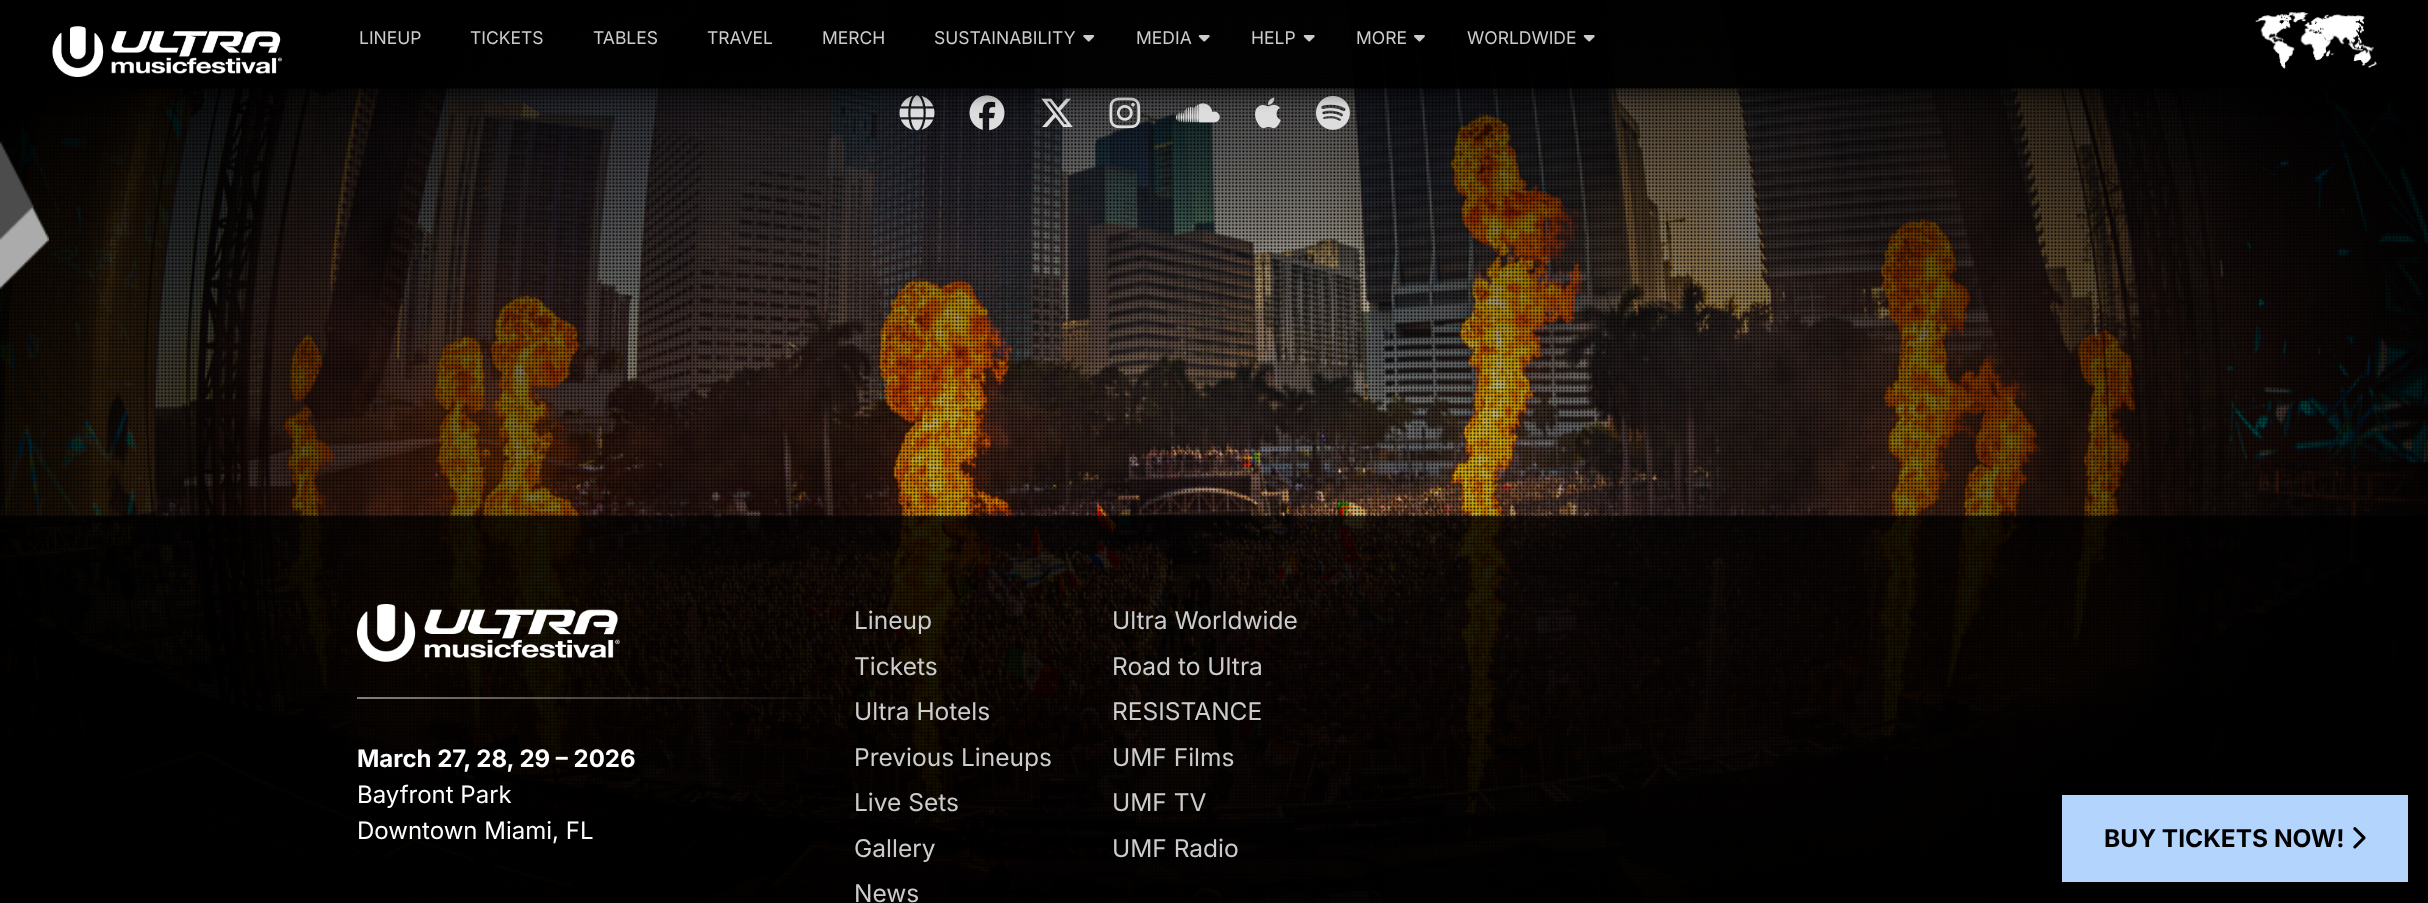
async function draw(canvas) {
  canvas.width = 2428;
  canvas.height = 903;
  const ctx = canvas.getContext('2d');
  ctx.miterLimit = 4;
  ctx.fontKerning = 'normal';
  function label(s, x, y, font, color) {
    ctx.font = font;
    ctx.fillStyle = color;
    ctx.fillText(s, x, y);
  }
  function rect(x, y, w, h, color) {
    ctx.fillStyle = color;
    ctx.fillRect(x, y, w, h);
  }
  async function image(src, x, y, w, h) {
    const img = new Image();
    img.src = src;
    await img.decode();
    ctx.drawImage(img, x, y, w, h);
  }
  let gradient, path;

  rect(0, 0, 2428, 903, '#fff');
  await image('assets/img1.png', 0, 0, 2428, 903);
  gradient = ctx.createRadialGradient(1215, 1215.24, 0, 1215, 1215.24, 1718);
  gradient.addColorStop(0, '#00000000');
  gradient.addColorStop(0.91, '#000');
  ctx.fillStyle = gradient;
  ctx.beginPath();
  ctx.rect(0, 0, 2428, 903);
  ctx.save();
  ctx.clip();
  ctx.scale(1, 639 / 1718);
  ctx.fillRect(0, 0, 2428, 2428);
  ctx.restore();
  await image('assets/img2.png', 0, 0, 2428, 903);
  await image('assets/img3.png', 0, 141, 49, 148);
  await image('assets/img11.png', 899, 95, 36, 36);
  await image('assets/img12.png', 969, 95, 36, 36);
  await image('assets/img13.png', 1041, 98, 32, 30);
  await image('assets/img14.png', 1109, 97, 32, 32);
  await image('assets/img15.png', 1176, 103, 44, 20);
  await image('assets/img16.png', 1255, 97, 26, 32);
  await image('assets/img17.png', 1316, 95, 34, 35);
  ctx.save();
  path = new Path2D('M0 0H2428V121H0ZM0 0H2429V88H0Z');
  ctx.clip(path, 'evenodd');
  ctx.fillStyle = '#000000f2';
  ctx.filter = 'blur(10.5px)';
  ctx.beginPath();
  ctx.rect(0, 0, 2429, 88);
  ctx.fill();
  ctx.filter = 'none';
  ctx.restore();
  rect(58, 0, 2268, 88, '#000000f2');
  await image('assets/img4.png', 52, 26, 230, 51);
  label('LINEUP', 359, 44, '17.5px Inter', '#ccc');
  label('TICKETS', 470, 44, '17.5px Inter', '#ccc');
  label('TABLES', 593, 44, '17.5px Inter', '#ccc');
  label('TRAVEL', 707, 44, '17.5px Inter', '#ccc');
  label('MERCH', 822, 44, '17.5px Inter', '#ccc');
  label('SUSTAINABILITY', 934, 44, '17.5px Inter', '#ccc');
  await image('assets/img5.png', 1083, 35, 12, 7);
  label('MEDIA', 1136, 44, '17.5px Inter', '#ccc');
  await image('assets/img6.png', 1198, 35, 12, 7);
  label('HELP', 1251, 44, '17.5px Inter', '#ccc');
  await image('assets/img7.png', 1303, 35, 12, 7);
  label('MORE', 1356, 44, '17.5px Inter', '#ccc');
  await image('assets/img8.png', 1414, 35, 11, 7);
  label('WORLDWIDE', 1467, 44, '17.5px Inter', '#ccc');
  await image('assets/img9.png', 1583, 35, 12, 7);
  await image('assets/img10.png', 2255, 12, 122, 57);
  rect(0, 516, 2428, 387, '#000000cc');
  await image('assets/img18.png', 357, 604, 263, 58);
  gradient = ctx.createLinearGradient(357, 697, 854, 697);
  gradient.addColorStop(0, '#ffffff80');
  gradient.addColorStop(1, '#ffffff00');
  ctx.fillStyle = gradient;
  ctx.fillRect(357, 697, 476, 2);
  label('March 27, 28, 29 – 2026', 357, 767, 'bold 24px Inter', '#fff');
  label('Bayfront Park', 357, 803, '24px Inter', '#fff');
  label('Downtown Miami, FL', 357, 839, '24px Inter', '#fff');
  label('Lineup', 854, 629, '24.5px Inter', '#ccc');
  label('Tickets', 854, 675, '24.5px Inter', '#ccc');
  label('Ultra Hotels', 854, 720, '24.5px Inter', '#ccc');
  label('Previous Lineups', 854, 766, '24.5px Inter', '#ccc');
  label('Live Sets', 854, 811, '24.5px Inter', '#ccc');
  label('Gallery', 854, 857, '24.5px Inter', '#ccc');
  label('News', 854, 902, '24.5px Inter', '#ccc');
  label('Ultra Worldwide', 1112, 629, '24.5px Inter', '#ccc');
  label('Road to Ultra', 1112, 675, '24.5px Inter', '#ccc');
  label('RESISTANCE', 1112, 720, '24.5px Inter', '#ccc');
  label('UMF Films', 1112, 766, '24.5px Inter', '#ccc');
  label('UMF TV', 1112, 811, '24.5px Inter', '#ccc');
  label('UMF Radio', 1112, 857, '24.5px Inter', '#ccc');
  rect(2062, 795, 346, 87, '#b3d4fd');
  label('BUY TICKETS NOW!', 2104, 847, 'bold 24.5px Inter', '#000');
  await image('assets/img19.png', 2353, 827, 13, 22);
}

draw(document.querySelector('canvas'));
